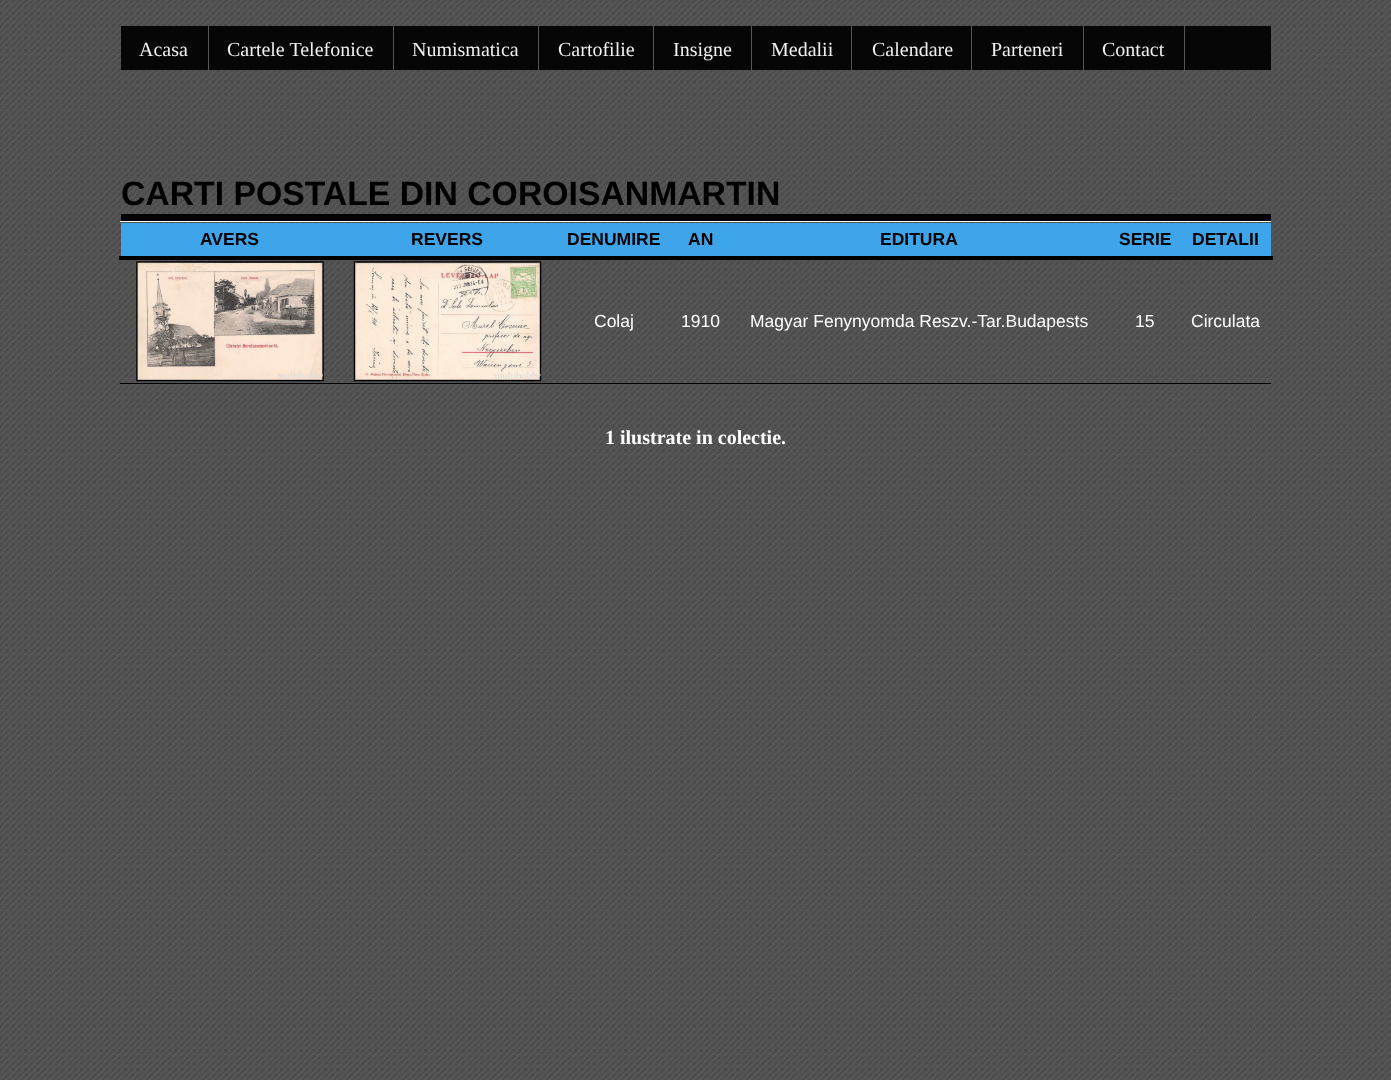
async function draw(canvas) {
  canvas.width = 1391;
  canvas.height = 1080;
  const ctx = canvas.getContext('2d');
  ctx.miterLimit = 4;
  ctx.fontKerning = 'normal';
  function label(s, x, y, font, color) {
    ctx.font = font;
    ctx.fillStyle = color;
    ctx.fillText(s, x, y);
  }
  function rect(x, y, w, h, color) {
    ctx.fillStyle = color;
    ctx.fillRect(x, y, w, h);
  }
  async function image(src, x, y, w, h) {
    const img = new Image();
    img.src = src;
    await img.decode();
    ctx.drawImage(img, x, y, w, h);
  }

  rect(0, 0, 1391, 1080, '#fff');
  await image('assets/img1.png', 0, 0, 1391, 1080);
  rect(121, 26, 1150, 44, '#060606');
  rect(208, 26, 1, 44, '#555');
  label('Acasa', 139, 56, '20px Liberation Serif', '#f0f0f0');
  rect(393, 26, 1, 44, '#555');
  label('Cartele Telefonice', 227, 56, '20px Liberation Serif', '#f0f0f0');
  rect(538, 26, 1, 44, '#555');
  label('Numismatica', 412, 56, '20px Liberation Serif', '#f0f0f0');
  rect(653, 26, 1, 44, '#555');
  label('Cartofilie', 558, 56, '20px Liberation Serif', '#f0f0f0');
  rect(751, 26, 1, 44, '#555');
  label('Insigne', 673, 56, '20px Liberation Serif', '#f0f0f0');
  rect(851, 26, 1, 44, '#555');
  label('Medalii', 771, 56, '20px Liberation Serif', '#f0f0f0');
  rect(971, 26, 1, 44, '#555');
  label('Calendare', 872, 56, '20px Liberation Serif', '#f0f0f0');
  rect(1083, 26, 1, 44, '#555');
  label('Parteneri', 991, 56, '20px Liberation Serif', '#f0f0f0');
  rect(1184, 26, 1, 44, '#555');
  label('Contact', 1102, 56, '20px Liberation Serif', '#f0f0f0');
  rect(121, 214, 1150, 7, '#000');
  label('CARTI POSTALE DIN COROISANMARTIN', 121, 205, 'bold 33.75px Liberation Sans', '#000');
  rect(121, 223, 1150, 33, '#3ea5ea');
  label('AVERS', 200, 245, 'bold 17.5px Liberation Sans', '#000');
  label('REVERS', 411, 245, 'bold 17.5px Liberation Sans', '#000');
  label('DENUMIRE', 567, 245, 'bold 17.5px Liberation Sans', '#000');
  label('AN', 688, 245, 'bold 17.5px Liberation Sans', '#000');
  label('EDITURA', 880, 245, 'bold 17.5px Liberation Sans', '#000');
  label('SERIE', 1119, 245, 'bold 17.5px Liberation Sans', '#000');
  rect(120, 221, 1151, 1, '#fff');
  rect(119, 256, 1154, 4, '#000');
  label('DETALII', 1192, 245, 'bold 17.5px Liberation Sans', '#000');
  await image('assets/img2.png', 136, 261, 188, 121);
  await image('assets/img3.png', 353, 261, 189, 121);
  label('Colaj', 594, 327, '17.5px Liberation Sans', '#fff');
  label('1910', 681, 327, '17.5px Liberation Sans', '#fff');
  label('Magyar Fenynyomda Reszv.-Tar.Budapests', 750, 327, '17.5px Liberation Sans', '#fff');
  label('15', 1135, 327, '17.5px Liberation Sans', '#fff');
  rect(120, 383, 1151, 1, '#000');
  label('Circulata', 1191, 327, '17.5px Liberation Sans', '#fff');
  label('1 ilustrate in colectie.', 605, 444, 'bold 20px Liberation Serif', '#fff');
}

draw(document.querySelector('canvas'));
